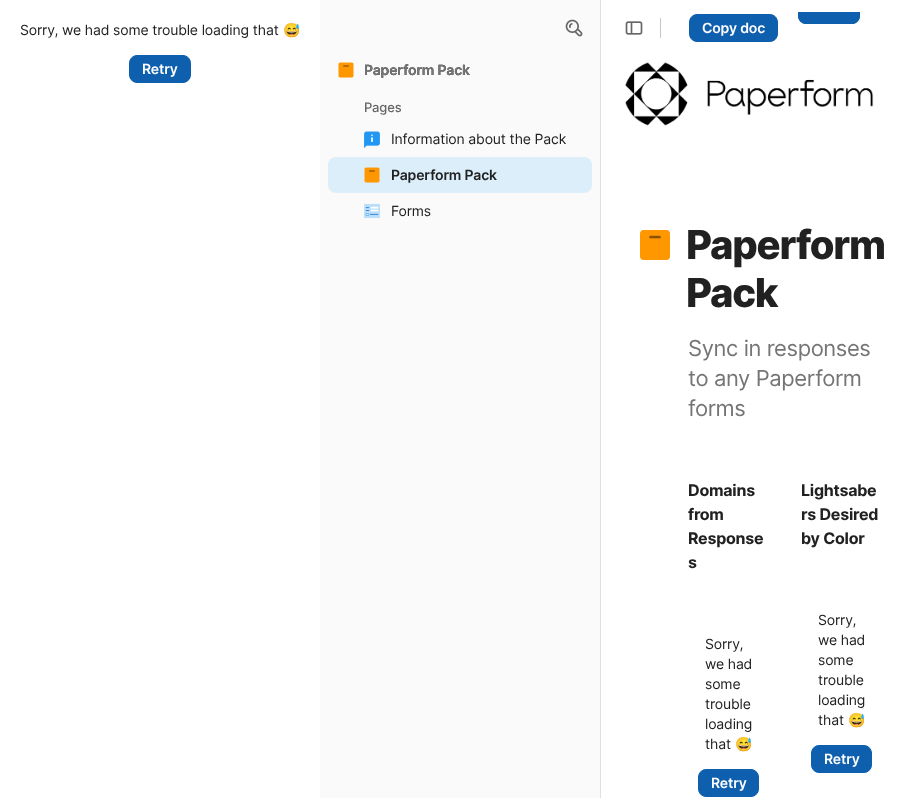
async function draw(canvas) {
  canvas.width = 898;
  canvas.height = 798;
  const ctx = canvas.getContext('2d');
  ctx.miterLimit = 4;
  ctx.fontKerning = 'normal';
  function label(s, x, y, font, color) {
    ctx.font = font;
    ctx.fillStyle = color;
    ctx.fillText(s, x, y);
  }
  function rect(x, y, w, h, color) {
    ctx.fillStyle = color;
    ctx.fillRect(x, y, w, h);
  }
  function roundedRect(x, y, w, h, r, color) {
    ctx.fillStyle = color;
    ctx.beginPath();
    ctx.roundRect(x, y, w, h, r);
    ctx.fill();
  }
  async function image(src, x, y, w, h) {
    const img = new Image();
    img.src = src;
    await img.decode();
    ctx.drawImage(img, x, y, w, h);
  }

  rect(0, 0, 898, 798, '#fff');
  ctx.letterSpacing = '-0.15px';
  label('Sorry, we had some trouble loading that', 20, 35, '14px Inter', '#212121');
  label('😅', 283, 35, '14px Noto Color Emoji', '#212121');
  ctx.fillStyle = '#0f5faf';
  ctx.beginPath();
  ctx.roundRect(129.5, 55.5, 61, 27, 7.5);
  ctx.fill();
  ctx.strokeStyle = '#0f5faf';
  ctx.stroke();
  label('Retry', 142, 74, '600 14px Inter', '#fff');
  rect(320, 0, 280, 798, '#fafafa');
  rect(600, 0, 1, 798, '#e0e0e0');
  await image('assets/img1.png', 565, 19, 18, 18);
  await image('assets/img2.png', 338, 62, 16, 16);
  label('Paperform Pack', 364, 75, '600 14px Inter', '#212121');
  label('Paperform Pack', 364, 75, '600 14px Inter', '#757575');
  label('Pages', 364, 112, '500 13px Inter', '#666');
  await image('assets/img3.png', 364, 131, 16, 17);
  label('Information about the Pack', 391, 144, '14px Inter', '#212121');
  roundedRect(328, 157, 264, 36, 8, '#dbeefa');
  await image('assets/img4.png', 364, 167, 16, 16);
  label('Paperform Pack', 391, 180, '600 14px Inter', '#212121');
  await image('assets/img5.png', 364, 203, 16, 16);
  label('Forms', 391, 216, '14px Inter', '#212121');
  await image('assets/img6.png', 625, 21, 18, 14);
  rect(660, 18, 1, 20, '#c6c6c6');
  ctx.fillStyle = '#0f5faf';
  ctx.beginPath();
  ctx.roundRect(798, 12, 62, 12, [0, 0, 8, 8]);
  ctx.fill();
  ctx.save();
  ctx.beginPath();
  ctx.rect(669, 12, 211, 32);
  ctx.clip();
  ctx.beginPath();
  ctx.roundRect(798.5, -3.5, 61, 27, 7.5);
  ctx.stroke();
  ctx.restore();
  ctx.beginPath();
  ctx.roundRect(689.5, 14.5, 88, 27, 7.5);
  ctx.fill();
  ctx.stroke();
  label('Copy doc', 702, 33, '600 14px Inter', '#fff');
  await image('assets/img7.png', 625, 62, 249, 64);
  await image('assets/img8.png', 640, 230, 30, 30);
  ctx.letterSpacing = '-1.25px';
  label('Paperform', 686, 259, '800 40px Inter', '#212121');
  label('Pack', 686, 307, '800 40px Inter', '#212121');
  ctx.letterSpacing = '-0.4px';
  label('Sync in responses', 688, 356, '22px Inter', '#757575');
  label('to any Paperform', 688, 386, '22px Inter', '#757575');
  label('forms', 688, 416, '22px Inter', '#757575');
  ctx.letterSpacing = '-0.25px';
  label('Domains', 688, 496, 'bold 16px Inter', '#212121');
  label('from', 688, 520, 'bold 16px Inter', '#212121');
  label('Response', 688, 544, 'bold 16px Inter', '#212121');
  label('s', 688, 568, 'bold 16px Inter', '#212121');
  ctx.letterSpacing = '-0.15px';
  label('Sorry,', 705, 649, '14px Inter', '#212121');
  label('we had', 705, 669, '14px Inter', '#212121');
  label('some', 705, 689, '14px Inter', '#212121');
  label('trouble', 705, 709, '14px Inter', '#212121');
  label('loading', 705, 729, '14px Inter', '#212121');
  label('that', 705, 749, '14px Inter', '#212121');
  label('😅', 735, 749, '14px Noto Color Emoji', '#212121');
  ctx.fillStyle = '#0f5faf';
  ctx.beginPath();
  ctx.roundRect(698.5, 769.5, 60, 27, 7.5);
  ctx.fill();
  ctx.stroke();
  label('Retry', 711, 788, '600 14px Inter', '#fff');
  ctx.letterSpacing = '-0.25px';
  label('Lightsabe', 801, 496, 'bold 16px Inter', '#212121');
  label('rs Desired', 801, 520, 'bold 16px Inter', '#212121');
  label('by Color', 801, 544, 'bold 16px Inter', '#212121');
  ctx.letterSpacing = '-0.15px';
  label('Sorry,', 818, 625, '14px Inter', '#212121');
  label('we had', 818, 645, '14px Inter', '#212121');
  label('some', 818, 665, '14px Inter', '#212121');
  label('trouble', 818, 685, '14px Inter', '#212121');
  label('loading', 818, 705, '14px Inter', '#212121');
  label('that', 818, 725, '14px Inter', '#212121');
  label('😅', 848, 725, '14px Noto Color Emoji', '#212121');
  ctx.fillStyle = '#0f5faf';
  ctx.beginPath();
  ctx.roundRect(811.5, 745.5, 60, 27, 7.5);
  ctx.fill();
  ctx.stroke();
  label('Retry', 824, 764, '600 14px Inter', '#fff');
}

draw(document.querySelector('canvas'));
